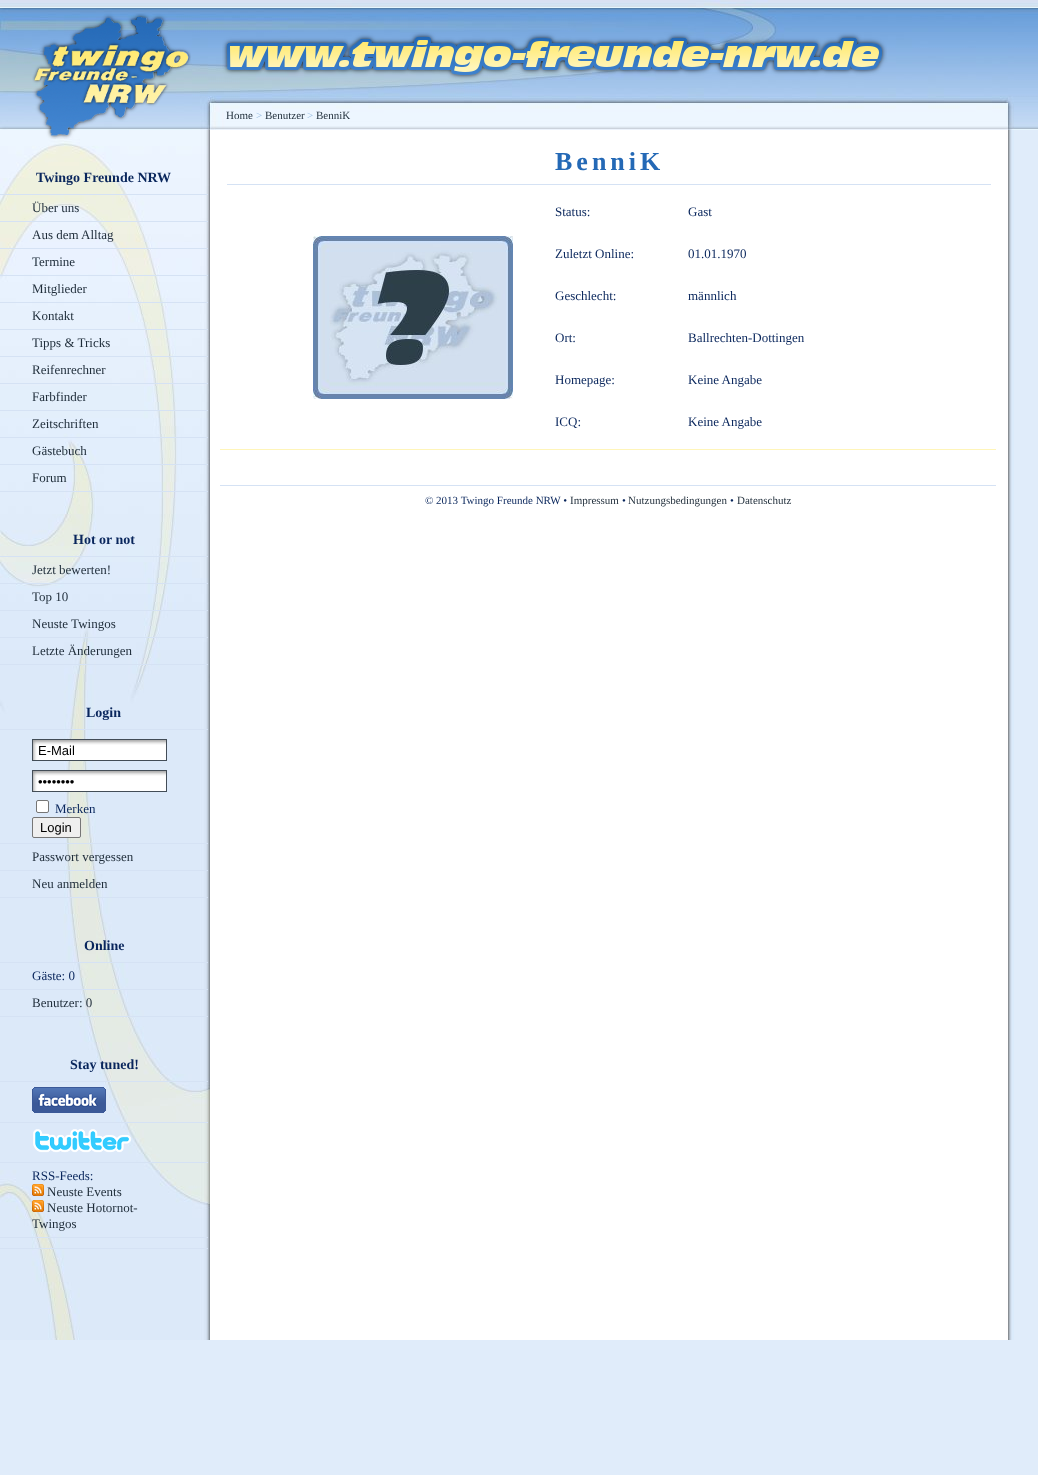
async function draw(canvas) {
  canvas.width = 1038;
  canvas.height = 1475;
  const ctx = canvas.getContext('2d');
  ctx.miterLimit = 4;
  ctx.fontKerning = 'normal';
  function label(s, x, y, font, color) {
    ctx.font = font;
    ctx.fillStyle = color;
    ctx.fillText(s, x, y);
  }
  function rect(x, y, w, h, color) {
    ctx.fillStyle = color;
    ctx.fillRect(x, y, w, h);
  }
  async function image(src, x, y, w, h) {
    const img = new Image();
    img.src = src;
    await img.decode();
    ctx.drawImage(img, x, y, w, h);
  }

  rect(0, 0, 1038, 1475, '#e0ecfa');
  await image('assets/img1.png', 1014, 0, 24, 130);
  await image('assets/img3.png', 0, 0, 1014, 130);
  await image('assets/img5.png', 0, 130, 210, 1210);
  await image('assets/img2.png', 32, 13, 159, 126);
  await image('assets/img4.png', 222, 32, 665, 48);
  label('Home', 226, 119, '11px Liberation Serif', '#1e2c39');
  label('>', 256, 119, '11px Liberation Serif', '#96bae0');
  label('Benutzer', 265, 119, '11px Liberation Serif', '#1e2c39');
  label('>', 307, 119, '11px Liberation Serif', '#96bae0');
  label('BenniK', 316, 119, '11px Liberation Serif', '#1e2c39');
  rect(0, 194, 208, 1, '#d5e2f4');
  label('Twingo Freunde NRW', 36, 182, 'bold 14px Liberation Serif', '#09265c');
  rect(0, 221, 208, 1, '#d5e2f4');
  label('Über uns', 32, 212, '13px Liberation Serif', '#1e2c39');
  rect(0, 248, 208, 1, '#d5e2f4');
  label('Aus dem Alltag', 32, 239, '13px Liberation Serif', '#1e2c39');
  rect(0, 275, 208, 1, '#d5e2f4');
  label('Termine', 32, 266, '13px Liberation Serif', '#1e2c39');
  rect(0, 302, 208, 1, '#d5e2f4');
  label('Mitglieder', 32, 293, '13px Liberation Serif', '#1e2c39');
  rect(0, 329, 208, 1, '#d5e2f4');
  label('Kontakt', 32, 320, '13px Liberation Serif', '#1e2c39');
  rect(0, 356, 208, 1, '#d5e2f4');
  label('Tipps & Tricks', 32, 347, '13px Liberation Serif', '#1e2c39');
  rect(0, 383, 208, 1, '#d5e2f4');
  label('Reifenrechner', 32, 374, '13px Liberation Serif', '#1e2c39');
  rect(0, 410, 208, 1, '#d5e2f4');
  label('Farbfinder', 32, 401, '13px Liberation Serif', '#1e2c39');
  rect(0, 437, 208, 1, '#d5e2f4');
  label('Zeitschriften', 32, 428, '13px Liberation Serif', '#1e2c39');
  rect(0, 464, 208, 1, '#d5e2f4');
  label('Gästebuch', 32, 455, '13px Liberation Serif', '#1e2c39');
  rect(0, 491, 208, 1, '#d5e2f4');
  label('Forum', 32, 482, '13px Liberation Serif', '#1e2c39');
  rect(0, 556, 208, 1, '#d5e2f4');
  label('Hot or not', 73, 544, 'bold 14px Liberation Serif', '#09265c');
  rect(0, 583, 208, 1, '#d5e2f4');
  label('Jetzt bewerten!', 32, 574, '13px Liberation Serif', '#1e2c39');
  rect(0, 610, 208, 1, '#d5e2f4');
  label('Top 10', 32, 601, '13px Liberation Serif', '#1e2c39');
  rect(0, 637, 208, 1, '#d5e2f4');
  label('Neuste Twingos', 32, 628, '13px Liberation Serif', '#1e2c39');
  rect(0, 664, 208, 1, '#d5e2f4');
  label('Letzte Änderungen', 32, 655, '13px Liberation Serif', '#1e2c39');
  rect(0, 729, 208, 1, '#d5e2f4');
  label('Login', 86, 717, 'bold 14px Liberation Serif', '#09265c');
  rect(0, 843, 208, 1, '#d5e2f4');
  await image('assets/img6.png', 33, 740, 133, 20);
  ctx.strokeStyle = '#434d57';
  ctx.strokeRect(32.5, 739.5, 134, 21);
  label('E-Mail', 38, 755, '13px Liberation Sans', '#000');
  await image('assets/img6.png', 33, 771, 133, 20);
  ctx.strokeRect(32.5, 770.5, 134, 21);
  label('••••••••', 38, 786, '13px Liberation Sans', '#000');
  ctx.fillStyle = '#fff';
  ctx.beginPath();
  ctx.roundRect(36.5, 800.5, 12, 12, 1.5);
  ctx.fill();
  ctx.strokeStyle = '#767676';
  ctx.stroke();
  label('Merken', 55, 813, '13px Liberation Serif', '#09265c');
  ctx.fillStyle = '#efefef';
  ctx.beginPath();
  ctx.roundRect(32.5, 817.5, 48, 20, 1.5);
  ctx.fill();
  ctx.stroke();
  label('Login', 40, 832, '13px Liberation Sans', '#000');
  rect(0, 870, 208, 1, '#d5e2f4');
  label('Passwort vergessen', 32, 861, '13px Liberation Serif', '#1e2c39');
  rect(0, 897, 208, 1, '#d5e2f4');
  label('Neu anmelden', 32, 888, '13px Liberation Serif', '#1e2c39');
  rect(0, 962, 208, 1, '#d5e2f4');
  label('Online', 84, 950, 'bold 14px Liberation Serif', '#09265c');
  rect(0, 989, 208, 1, '#d5e2f4');
  label('Gäste: 0', 32, 980, '13px Liberation Serif', '#09265c');
  rect(0, 1016, 208, 1, '#d5e2f4');
  label('Benutzer: 0', 32, 1007, '13px Liberation Serif', '#1e2c39');
  rect(0, 1081, 208, 1, '#d5e2f4');
  label('Stay tuned!', 70, 1069, 'bold 14px Liberation Serif', '#09265c');
  rect(0, 1122, 208, 1, '#d5e2f4');
  await image('assets/img7.png', 32, 1087, 74, 26);
  rect(0, 1162, 208, 1, '#d5e2f4');
  await image('assets/img8.png', 33, 1129, 98, 24);
  rect(0, 1237, 208, 1, '#d5e2f4');
  label('RSS-Feeds:', 32, 1180, '13px Liberation Serif', '#09265c');
  await image('assets/img9.png', 32, 1184, 12, 12);
  label('Neuste Events', 47, 1196, '13px Liberation Serif', '#1e2c39');
  await image('assets/img10.png', 32, 1200, 12, 12);
  label('Neuste Hotornot-', 47, 1212, '13px Liberation Serif', '#1e2c39');
  label('Twingos', 32, 1228, '13px Liberation Serif', '#1e2c39');
  rect(0, 1248, 208, 1, '#d5e2f4');
  await image('assets/img11.png', 1006, 130, 8, 1210);
  rect(210, 130, 796, 1210, '#fff');
  rect(227, 184, 764, 1, '#d5e2f4');
  ctx.letterSpacing = '4px';
  label('BenniK', 555, 170, 'bold 26px Liberation Serif', '#2469b6');
  ctx.letterSpacing = '0px';
  label('Status:', 555, 216, '13px Liberation Serif', '#09265c');
  label('Gast', 688, 216, '13px Liberation Serif', '#09265c');
  await image('assets/img12.png', 313, 236, 200, 163);
  label('Zuletzt Online:', 555, 258, '13px Liberation Serif', '#09265c');
  label('01.01.1970', 688, 258, '13px Liberation Serif', '#09265c');
  label('Geschlecht:', 555, 300, '13px Liberation Serif', '#09265c');
  label('männlich', 688, 300, '13px Liberation Serif', '#09265c');
  label('Ort:', 555, 342, '13px Liberation Serif', '#09265c');
  label('Ballrechten-Dottingen', 688, 342, '13px Liberation Serif', '#09265c');
  label('Homepage:', 555, 384, '13px Liberation Serif', '#09265c');
  label('Keine Angabe', 688, 384, '13px Liberation Serif', '#09265c');
  label('ICQ:', 555, 426, '13px Liberation Serif', '#09265c');
  label('Keine Angabe', 688, 426, '13px Liberation Serif', '#09265c');
  rect(220, 449, 776, 1, '#fff5b9');
  rect(220, 485, 776, 1, '#d5e2f4');
  label('© 2013 Twingo Freunde NRW •', 425, 504, '11px Liberation Serif', '#09265c');
  label('Impressum', 570, 504, '11px Liberation Serif', '#1e2c39');
  label('•', 622, 504, '11px Liberation Serif', '#09265c');
  label('Nutzungsbedingungen', 628, 504, '11px Liberation Serif', '#1e2c39');
  label('•', 730, 504, '11px Liberation Serif', '#09265c');
  label('Datenschutz', 737, 504, '11px Liberation Serif', '#1e2c39');
}

draw(document.querySelector('canvas'));
